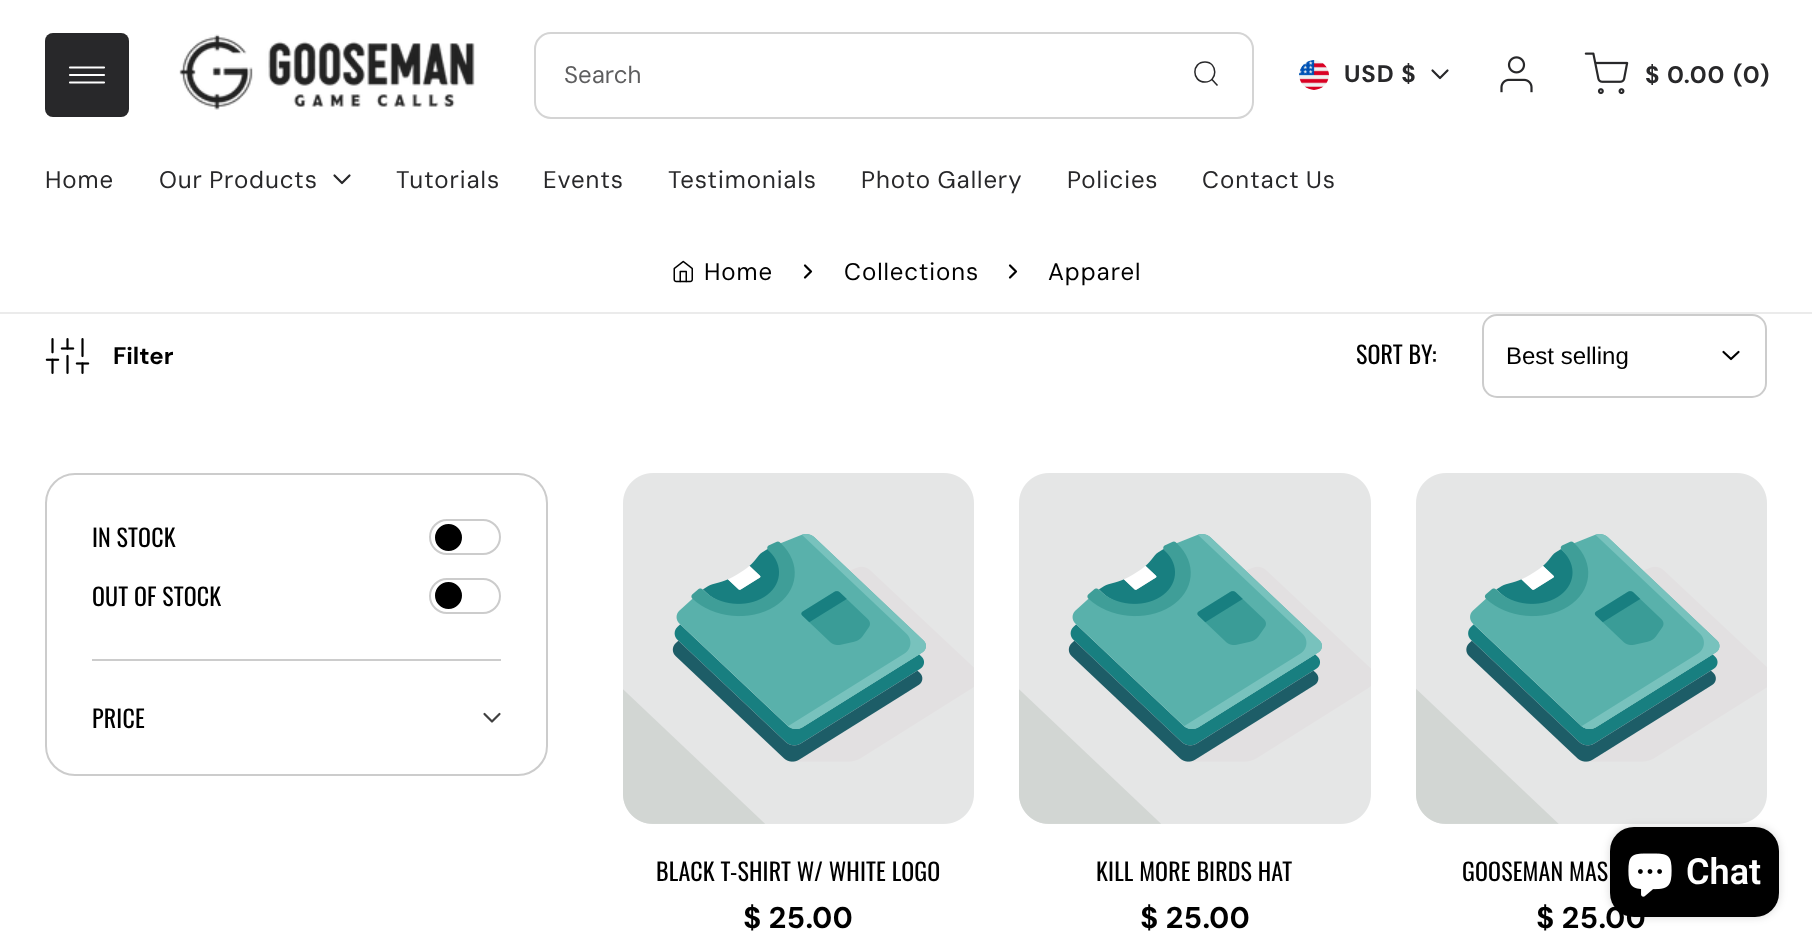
async function draw(canvas) {
  canvas.width = 1812;
  canvas.height = 947;
  const ctx = canvas.getContext('2d');
  ctx.miterLimit = 4;
  ctx.fontKerning = 'normal';
  function label(s, x, y, font, color) {
    ctx.font = font;
    ctx.fillStyle = color;
    ctx.fillText(s, x, y);
  }
  function rect(x, y, w, h, color) {
    ctx.fillStyle = color;
    ctx.fillRect(x, y, w, h);
  }
  function roundedRect(x, y, w, h, r, color) {
    ctx.fillStyle = color;
    ctx.beginPath();
    ctx.roundRect(x, y, w, h, r);
    ctx.fill();
  }
  async function image(src, x, y, w, h) {
    const img = new Image();
    img.src = src;
    await img.decode();
    ctx.drawImage(img, x, y, w, h);
  }
  let path;

  rect(0, 0, 1812, 947, '#fff');
  roundedRect(45, 33, 84, 84, 8, '#28282a');
  ctx.beginPath();
  ctx.roundRect(46, 34, 82, 82, 7);
  ctx.strokeStyle = '#28282a14';
  ctx.lineWidth = 2;
  ctx.stroke();
  path = new Path2D('M104 75H70M104 67.5H70M104 82.5H70');
  ctx.strokeStyle = '#fff';
  ctx.lineWidth = 2.2;
  ctx.lineCap = 'round';
  ctx.lineJoin = 'round';
  ctx.stroke(path);
  await image('assets/img1.png', 179, 34, 296, 76);
  path = new Path2D('M1205 82C1218 82 1218 62 1205 62C1191.5 62 1191.5 82 1205 82Z');
  ctx.strokeStyle = '#28282a';
  ctx.lineWidth = 1.5;
  ctx.stroke(path);
  path = new Path2D('M1217 85L1212 79.5');
  ctx.lineCap = 'square';
  ctx.stroke(path);
  ctx.beginPath();
  ctx.roundRect(535, 33, 718, 85, 16);
  ctx.strokeStyle = '#d4d4d4';
  ctx.lineWidth = 2;
  ctx.lineJoin = 'miter';
  ctx.stroke();
  label('Search', 564, 83, '24px DM Sans', '#5e5e5f');
  await image('assets/img2.png', 1299, 60, 30, 30);
  ctx.letterSpacing = '0.9px';
  label('USD $', 1344, 82, 'bold 24px DM Sans', '#28282a');
  path = new Path2D('M1447.5 70.5L1440 78L1432.5 70.5');
  ctx.strokeStyle = '#28282a';
  ctx.lineWidth = 2.2;
  ctx.lineCap = 'round';
  ctx.lineJoin = 'round';
  ctx.stroke(path);
  await image('assets/img3.png', 1500, 56, 33, 37);
  await image('assets/img4.png', 1584, 52, 45, 43);
  label('$ 0.00', 1645, 83, 'bold 24px DM Sans', '#28282a');
  label('(0)', 1733, 83, 'bold 24px DM Sans', '#28282a');
  label('Home', 45, 188, '24px DM Sans', '#28282a');
  ctx.wordSpacing = '-1px';
  label('Our Products', 159, 188, '24px DM Sans', '#28282a');
  path = new Path2D('M349.5 175.5L342 183L334.5 175.5');
  ctx.stroke(path);
  ctx.wordSpacing = '0px';
  label('Tutorials', 396, 188, '24px DM Sans', '#28282a');
  label('Events', 543, 188, '24px DM Sans', '#28282a');
  label('Testimonials', 668, 188, '24px DM Sans', '#28282a');
  ctx.wordSpacing = '-1px';
  label('Photo Gallery', 861, 188, '24px DM Sans', '#28282a');
  ctx.wordSpacing = '0px';
  label('Policies', 1067, 188, '24px DM Sans', '#28282a');
  ctx.wordSpacing = '-1px';
  label('Contact Us', 1202, 188, '24px DM Sans', '#28282a');
  rect(0, 312, 1812, 2, '#ebebeb');
  await image('assets/img5.png', 673, 260, 20, 23);
  ctx.wordSpacing = '0px';
  label('Home', 704, 280, '24px DM Sans', '#000');
  path = new Path2D('M805 277.5L811 271.5L805 265.5');
  ctx.strokeStyle = '#000';
  ctx.stroke(path);
  label('Collections', 844, 280, '24px DM Sans', '#000');
  path = new Path2D('M1010 277.5L1016 271.5L1010 265.5');
  ctx.stroke(path);
  label('Apparel', 1048, 280, '24px DM Sans', '#000');
  await image('assets/img6.png', 45, 338, 45, 36);
  ctx.letterSpacing = '0px';
  label('Filter', 113, 364, 'bold 24px DM Sans', '#000');
  ctx.letterSpacing = '0.15px';
  label('SORT BY:', 1356, 364, '24px Oswald', '#000');
  ctx.beginPath();
  ctx.roundRect(1483, 315, 283, 82, 14);
  ctx.strokeStyle = '#ccc';
  ctx.lineWidth = 2;
  ctx.lineJoin = 'miter';
  ctx.stroke();
  ctx.letterSpacing = '0px';
  label('Best selling', 1506, 364, '24px Liberation Sans', '#000');
  path = new Path2D('M1738.5 352L1731 359L1723.5 352');
  ctx.strokeStyle = '#000';
  ctx.lineWidth = 2.2;
  ctx.lineJoin = 'round';
  ctx.stroke(path);
  ctx.beginPath();
  ctx.roundRect(46, 474, 501, 301, 29);
  ctx.strokeStyle = '#ccc';
  ctx.lineWidth = 2;
  ctx.lineJoin = 'miter';
  ctx.stroke();
  ctx.letterSpacing = '0.15px';
  label('IN STOCK', 92, 547, '24px Oswald', '#000');
  ctx.beginPath();
  ctx.roundRect(430, 520, 70, 34, 17);
  ctx.stroke();
  ctx.beginPath();
  ctx.arc(448.5, 537.5, 12.5, 0, 2 * Math.PI);
  ctx.fill();
  ctx.strokeStyle = '#000';
  ctx.stroke();
  label('OUT OF STOCK', 92, 606, '24px Oswald', '#000');
  ctx.beginPath();
  ctx.roundRect(430, 579, 70, 34, 17);
  ctx.strokeStyle = '#ccc';
  ctx.stroke();
  ctx.beginPath();
  ctx.arc(448.5, 595.5, 12.5, 0, 2 * Math.PI);
  ctx.fill();
  ctx.strokeStyle = '#000';
  ctx.stroke();
  rect(92, 659, 409, 2, '#ccc');
  label('PRICE', 92, 728, '24px Oswald', '#000');
  path = new Path2D('M499.5 714L492 721.5L484.5 714');
  ctx.strokeStyle = '#404040';
  ctx.lineWidth = 2.2;
  ctx.lineJoin = 'round';
  ctx.stroke(path);
  await image('assets/img7.png', 623, 473, 351, 351);
  label('BLACK T-SHIRT W/ WHITE LOGO', 656, 881, '24px Oswald', '#000');
  ctx.letterSpacing = '0px';
  label('$ 25.00', 743, 928, 'bold 30px "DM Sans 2"', '#000');
  await image('assets/img8.png', 1019, 473, 352, 351);
  ctx.letterSpacing = '0.15px';
  label('KILL MORE BIRDS HAT', 1096, 881, '24px Oswald', '#000');
  ctx.letterSpacing = '0px';
  label('$ 25.00', 1140, 928, 'bold 30px "DM Sans 2"', '#000');
  await image('assets/img9.png', 1416, 473, 351, 351);
  ctx.letterSpacing = '0.15px';
  label('GOOSEMAN MAS', 1462, 881, '24px Oswald', '#000');
  ctx.letterSpacing = '0px';
  label('$ 25.00', 1536, 928, 'bold 30px "DM Sans 2"', '#000');
  ctx.fillStyle = '#00000026';
  ctx.filter = 'blur(4px)';
  ctx.beginPath();
  ctx.roundRect(1610, 827, 169, 90, 24);
  ctx.fill();
  ctx.filter = 'none';
  roundedRect(1610, 827, 169, 90, 24, '#000');
  await image('assets/img10.png', 1628, 853, 44, 44);
  label('Chat', 1686, 884, '600 36px Roboto', '#fff');
}

draw(document.querySelector('canvas'));
